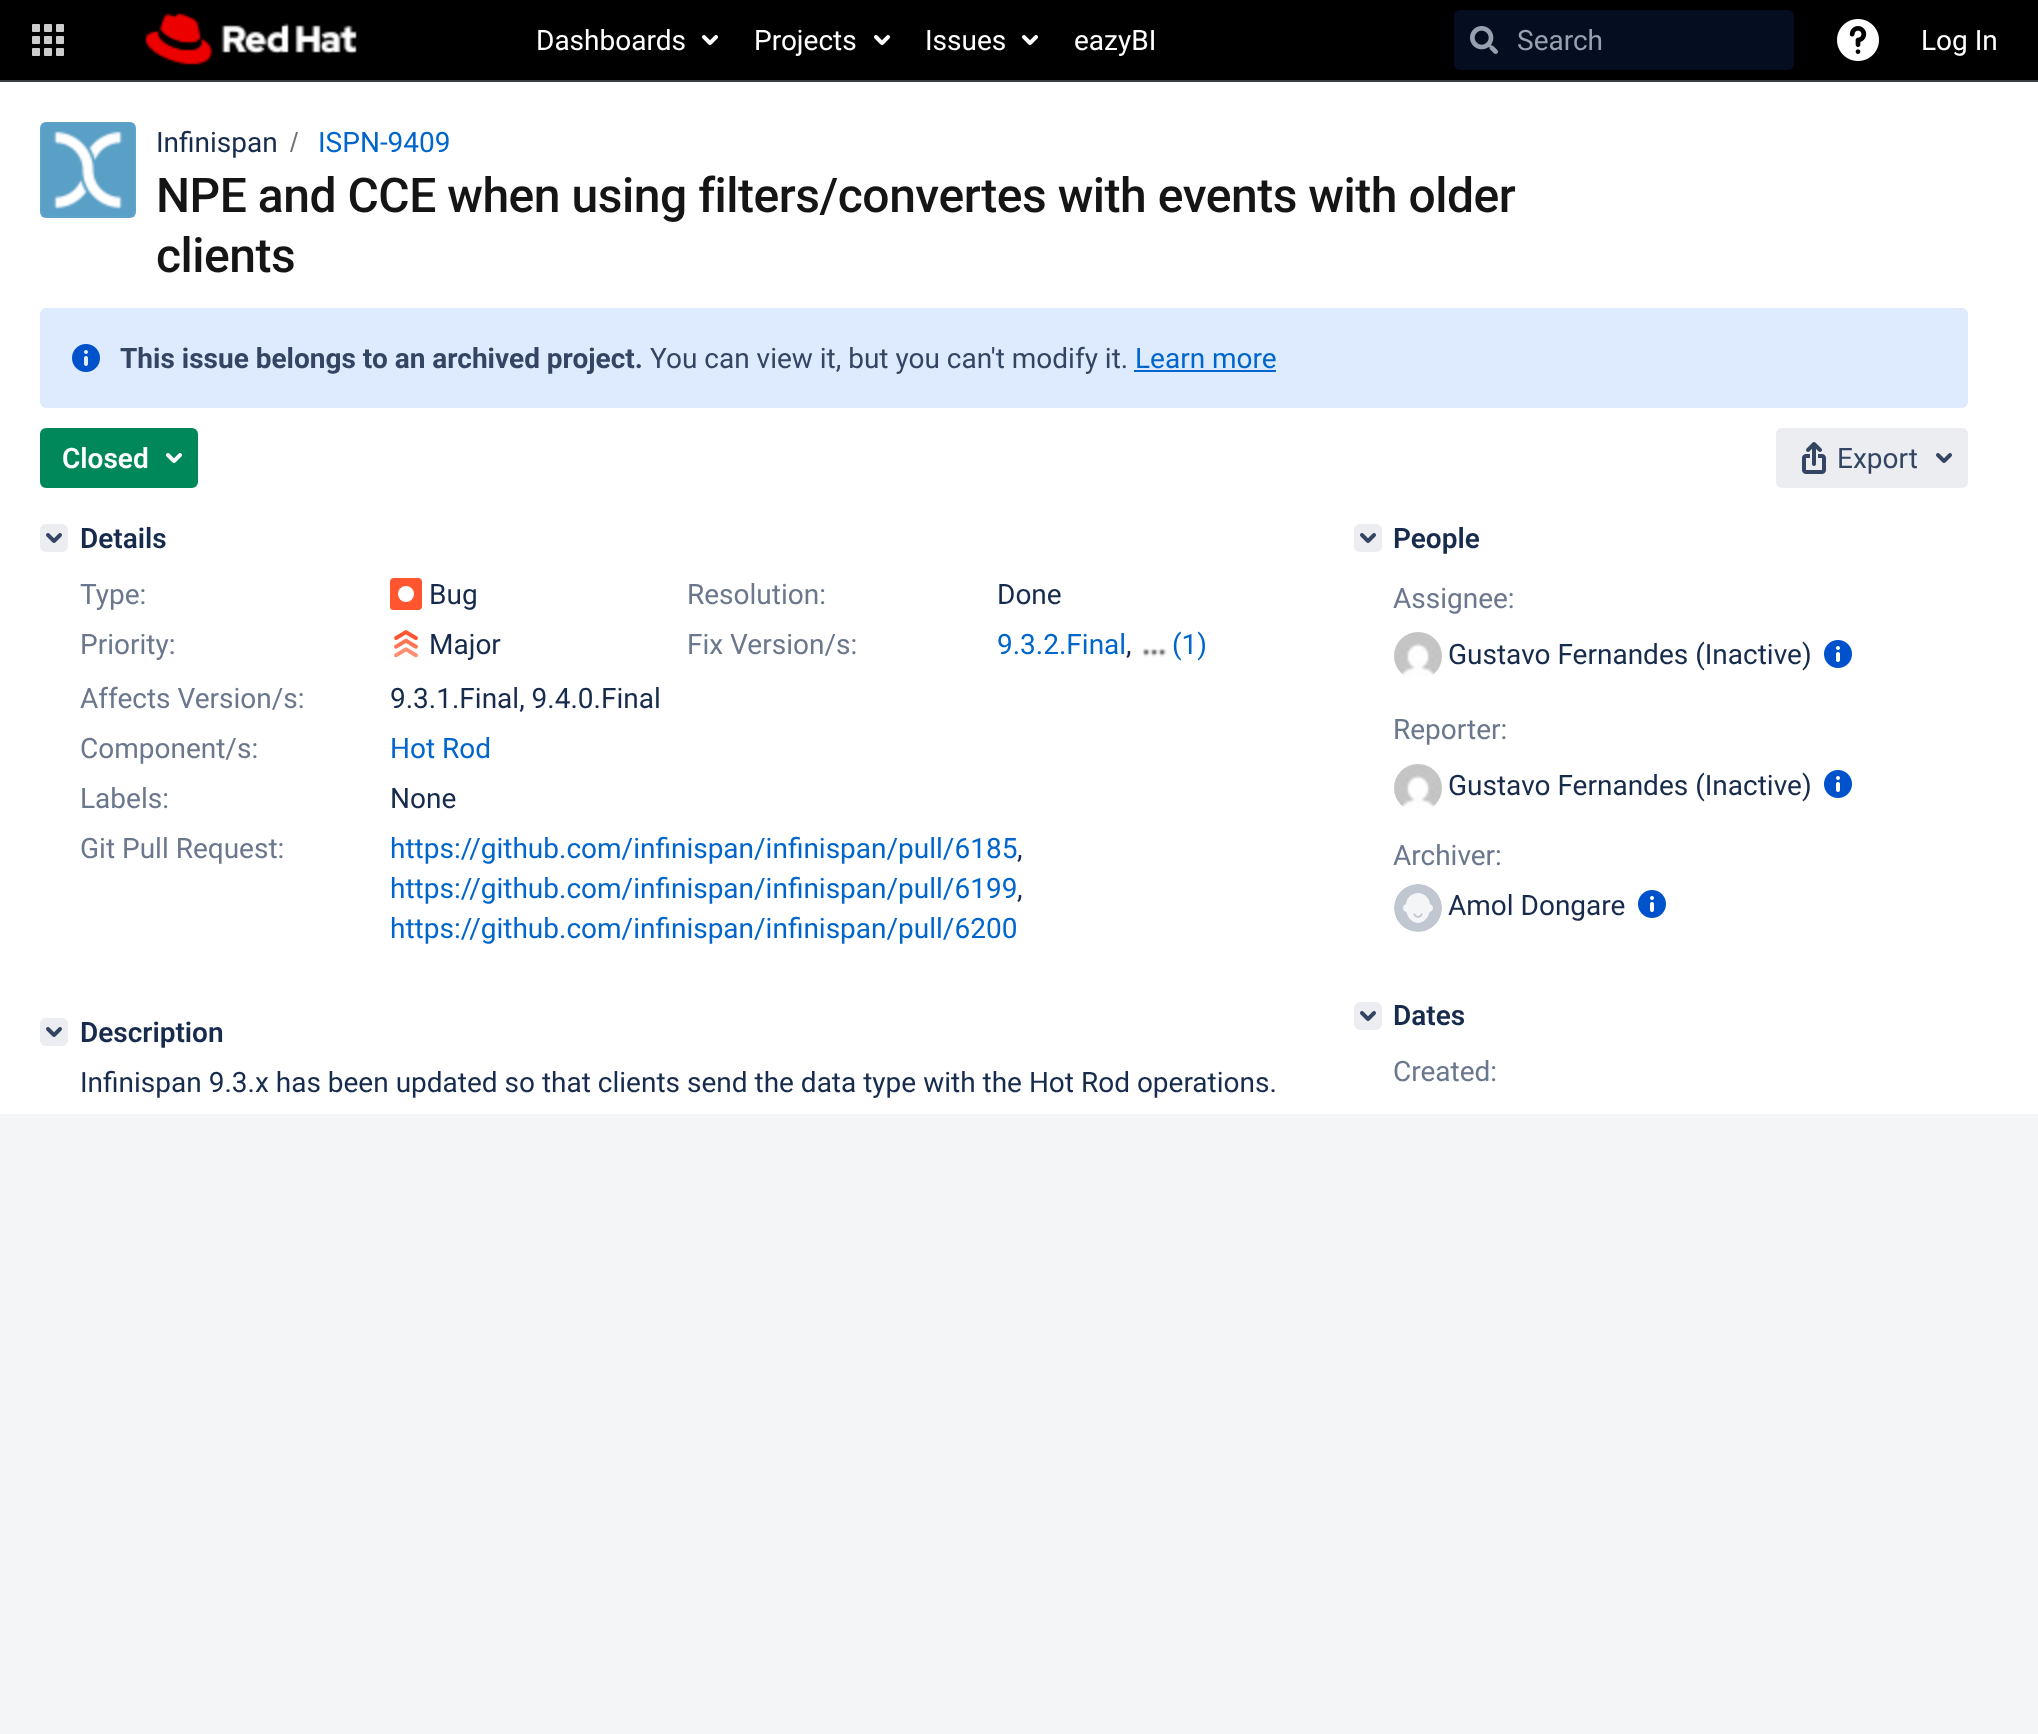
async function draw(canvas) {
  canvas.width = 2038;
  canvas.height = 1734;
  const ctx = canvas.getContext('2d');
  ctx.miterLimit = 4;
  ctx.fontKerning = 'normal';
  function label(s, x, y, font, color) {
    ctx.font = font;
    ctx.fillStyle = color;
    ctx.fillText(s, x, y);
  }
  function rect(x, y, w, h, color) {
    ctx.fillStyle = color;
    ctx.fillRect(x, y, w, h);
  }
  function roundedRect(x, y, w, h, r, color) {
    ctx.fillStyle = color;
    ctx.beginPath();
    ctx.roundRect(x, y, w, h, r);
    ctx.fill();
  }
  async function image(src, x, y, w, h) {
    const img = new Image();
    img.src = src;
    await img.decode();
    ctx.drawImage(img, x, y, w, h);
  }
  let path;

  rect(0, 0, 2038, 1734, '#f4f5f7');
  rect(0, 0, 2038, 80, '#000');
  rect(0, 80, 2038, 2, '#3c3f42');
  await image('assets/img1.png', 32, 24, 32, 32);
  await image('assets/img2.png', 145, 13, 212, 52);
  label('Dashboards', 536, 50, '28px Roboto', '#fff');
  await image('assets/img3.png', 702, 35, 16, 10);
  label('Projects', 754, 50, '28px Roboto', '#fff');
  await image('assets/img3.png', 874, 35, 16, 10);
  label('Issues', 925, 50, '28px Roboto', '#fff');
  await image('assets/img3.png', 1022, 35, 16, 10);
  label('eazyBI', 1074, 50, '28px Roboto', '#fff');
  roundedRect(1454, 10, 340, 60, 6, '#040e20');
  await image('assets/img4.png', 1470, 26, 28, 28);
  label('Search', 1517, 50, '28px Roboto', '#97a0af');
  await image('assets/img5.png', 1837, 19, 42, 42);
  label('Log In', 1921, 50, '28px Roboto', '#fff');
  rect(0, 82, 2038, 1032, '#fff');
  await image('assets/img6.png', 40, 122, 96, 96);
  label('Infinispan', 156, 152, '28px Roboto', '#172b4d');
  ctx.fillStyle = '#707070';
  path = new Path2D('M292 152L298 132H296L290 152Z');
  ctx.fill(path);
  label('ISPN-9409', 318, 152, '28px Roboto', '#06c');
  ctx.letterSpacing = '-0.48px';
  label('NPE and CCE when using filters/convertes with events with older', 156, 212, '500 48px Roboto', '#151515');
  label('clients', 156, 272, '500 48px Roboto', '#151515');
  roundedRect(40, 308, 1928, 100, 6, '#deebff');
  await image('assets/img7.png', 72, 344, 28, 28);
  ctx.letterSpacing = '0px';
  label('This issue belongs to an archived project.', 120, 368, 'bold 28px Roboto', '#344563');
  label('You can view it, but you can\'t modify it.', 650, 368, '28px Roboto', '#344563');
  label('Learn more', 1135, 368, '28px Roboto', '#06c');
  rect(1134, 370, 142, 2, '#06c');
  ctx.fillStyle = '#00875a';
  ctx.beginPath();
  ctx.roundRect(41, 429, 156, 58, 5);
  ctx.fill();
  ctx.strokeStyle = '#00875a';
  ctx.lineWidth = 2;
  ctx.stroke();
  label('Closed', 62, 468, '600 28px Roboto', '#fff');
  await image('assets/img8.png', 166, 453, 16, 10);
  roundedRect(1776, 428, 192, 60, 6, '#ebedf0');
  await image('assets/img9.png', 1802, 442, 24, 32);
  label('Export', 1837, 468, '28px Roboto', '#344563');
  await image('assets/img10.png', 1936, 453, 16, 10);
  roundedRect(40, 524, 28, 28, 6, '#ebedf0');
  await image('assets/img11.png', 46, 533, 16, 10);
  label('Details', 80, 548, '600 28px Roboto', '#172b4d');
  label('Type:', 80, 604, '28px Roboto', '#6b778c');
  await image('assets/img12.png', 390, 578, 32, 32);
  label('Bug', 429, 604, '28px Roboto', '#172b4d');
  label('Resolution:', 687, 604, '28px Roboto', '#6b778c');
  label('Done', 997, 604, '28px Roboto', '#172b4d');
  label('Priority:', 80, 654, '28px Roboto', '#6b778c');
  await image('assets/img13.png', 394, 630, 24, 28);
  label('Major', 429, 654, '28px Roboto', '#172b4d');
  label('Fix Version/s:', 687, 654, '28px Roboto', '#6b778c');
  label('9.3.2.Final', 997, 654, '28px Roboto', '#06c');
  label(',', 1126, 654, '28px Roboto', '#172b4d');
  await image('assets/img14.png', 1141, 647, 26, 10);
  label('(1)', 1172, 654, '28px Roboto', '#06c');
  label('Affects Version/s:', 80, 708, '28px Roboto', '#6b778c');
  label('9.3.1.Final, 9.4.0.Final', 390, 708, '28px Roboto', '#172b4d');
  label('Component/s:', 80, 758, '28px Roboto', '#6b778c');
  label('Hot Rod', 390, 758, '28px Roboto', '#06c');
  label('Labels:', 80, 808, '28px Roboto', '#6b778c');
  label('None', 390, 808, '28px Roboto', '#172b4d');
  label('Git Pull Request:', 80, 858, '28px Roboto', '#6b778c');
  label('https://github.com/infinispan/infinispan/pull/6185', 390, 858, '28px Roboto', '#06c');
  label(',', 1017, 858, '28px Roboto', '#172b4d');
  label('https://github.com/infinispan/infinispan/pull/6199', 390, 898, '28px Roboto', '#06c');
  label(',', 1017, 898, '28px Roboto', '#172b4d');
  label('https://github.com/infinispan/infinispan/pull/6200', 390, 938, '28px Roboto', '#06c');
  roundedRect(40, 1018, 28, 28, 6, '#ebedf0');
  await image('assets/img11.png', 46, 1027, 16, 10);
  label('Description', 80, 1042, '600 28px Roboto', '#172b4d');
  label('Infinispan 9.3.x has been updated so that clients send the data type with the Hot Rod operations.', 80, 1092, '28px Roboto', '#172b4d');
  roundedRect(1354, 524, 28, 28, 6, '#ebedf0');
  await image('assets/img11.png', 1360, 533, 16, 10);
  label('People', 1393, 548, '600 28px Roboto', '#172b4d');
  label('Assignee:', 1393, 608, '28px Roboto', '#6b778c');
  await image('assets/img15.png', 1394, 632, 48, 44);
  label('Gustavo Fernandes (Inactive)', 1448, 664, '28px Roboto', '#172b4d');
  await image('assets/img16.png', 1824, 640, 28, 28);
  label('Reporter:', 1393, 739, '28px Roboto', '#6b778c');
  await image('assets/img15.png', 1394, 764, 48, 44);
  label('Gustavo Fernandes (Inactive)', 1448, 795, '28px Roboto', '#172b4d');
  await image('assets/img16.png', 1824, 770, 28, 28);
  label('Archiver:', 1393, 865, '28px Roboto', '#6b778c');
  await image('assets/img17.png', 1394, 884, 48, 48);
  label('Amol Dongare', 1448, 915, '28px Roboto', '#172b4d');
  await image('assets/img16.png', 1638, 890, 28, 28);
  roundedRect(1354, 1002, 28, 28, 6, '#ebedf0');
  await image('assets/img11.png', 1360, 1011, 16, 10);
  label('Dates', 1393, 1025, '600 28px Roboto', '#172b4d');
  label('Created:', 1393, 1081, '28px Roboto', '#6b778c');
}

draw(document.querySelector('canvas'));
